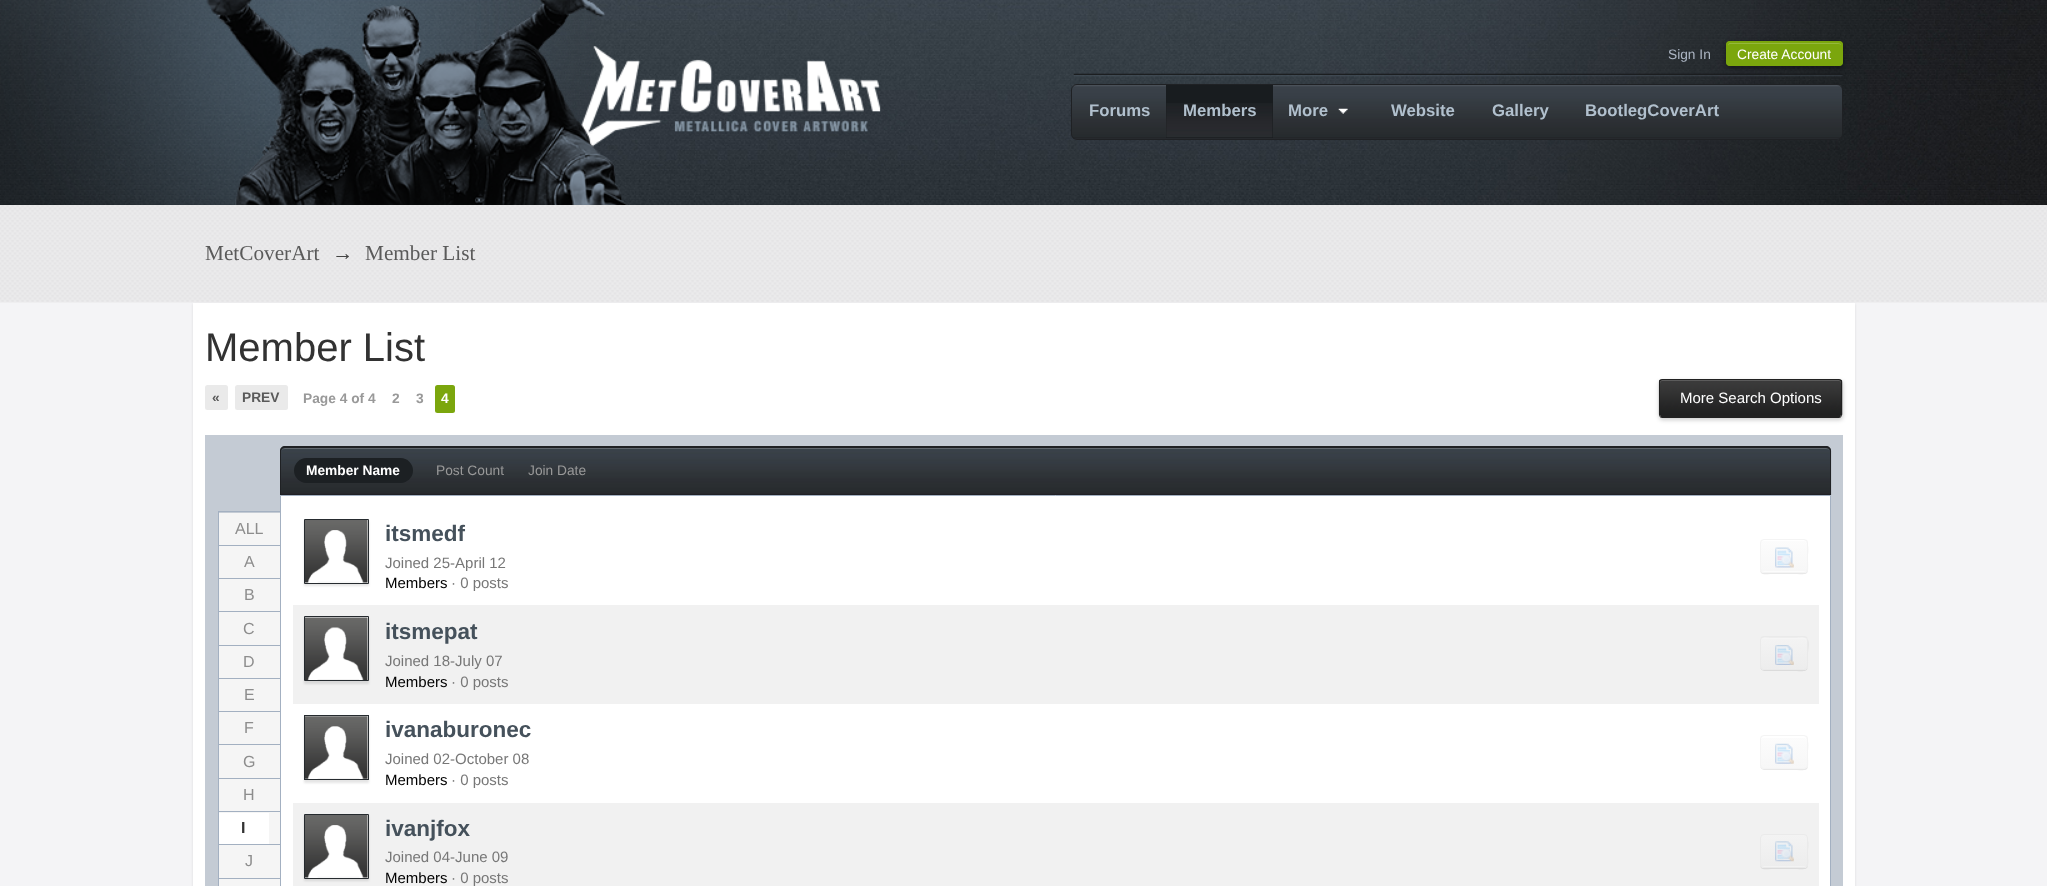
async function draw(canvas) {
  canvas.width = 2047;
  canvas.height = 886;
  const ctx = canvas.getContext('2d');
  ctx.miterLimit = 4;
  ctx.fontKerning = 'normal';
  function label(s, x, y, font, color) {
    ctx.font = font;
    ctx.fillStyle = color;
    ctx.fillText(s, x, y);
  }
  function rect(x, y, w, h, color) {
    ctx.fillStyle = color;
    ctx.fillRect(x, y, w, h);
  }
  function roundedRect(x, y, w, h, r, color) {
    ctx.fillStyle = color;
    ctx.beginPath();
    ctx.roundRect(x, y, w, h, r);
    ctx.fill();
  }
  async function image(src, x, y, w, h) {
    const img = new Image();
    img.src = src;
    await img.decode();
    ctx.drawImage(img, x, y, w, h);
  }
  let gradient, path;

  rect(0, 0, 2047, 886, '#f4f4f6');
  await image('assets/img1.png', 474, 0, 1573, 205);
  await image('assets/img2.png', 0, 0, 595, 205);
  await image('assets/img3.png', 206, 0, 675, 205);
  await image('assets/img4.png', 1073, 73, 770, 4);
  label('Sign In', 1668, 59, '13.75px Liberation Sans', '#acb5c3');
  ctx.fillStyle = '#00000066';
  ctx.filter = 'blur(2.5px)';
  ctx.beginPath();
  ctx.roundRect(1726, 43, 117, 25, 4);
  ctx.fill();
  ctx.filter = 'none';
  roundedRect(1726, 41, 117, 25, 4, '#7ba60d');
  ctx.fillStyle = '#95b83d';
  path = new Path2D('M1730 44H1839C1840 44 1841 45 1841 46C1841 44 1840 43 1838 43H1730C1729 43 1728 44 1728 46C1728 45 1729 44 1730 44Z');
  ctx.fill(path);
  ctx.beginPath();
  ctx.roundRect(1726.5, 41.5, 116, 24, 3.5);
  ctx.strokeStyle = '#7ba60d';
  ctx.stroke();
  label('Create Account', 1737, 59, '13.75px Liberation Sans', '#fff');
  await image('assets/img5.png', 1071, 85, 772, 55);
  ctx.beginPath();
  ctx.roundRect(1071.5, 84.5, 771, 55, 5.5);
  ctx.strokeStyle = '#1f2124';
  ctx.stroke();
  label('Forums', 1089, 116, 'bold 16.75px Liberation Sans', '#b1c0cd');
  rect(1166, 85, 107, 53, '#181c1f');
  await image('assets/img6.png', 1166, 103, 107, 35);
  label('Members', 1183, 116, 'bold 16.75px Liberation Sans', '#b1c0cd');
  label('More', 1288, 116, 'bold 16.75px Liberation Sans', '#b1c0cd');
  await image('assets/img7.png', 1338, 108, 10, 6);
  label('Website', 1391, 116, 'bold 16.75px Liberation Sans', '#b1c0cd');
  label('Gallery', 1492, 116, 'bold 16.75px Liberation Sans', '#b1c0cd');
  label('BootlegCoverArt', 1585, 116, 'bold 16.75px Liberation Sans', '#b1c0cd');
  ctx.fillStyle = '#dbdbdb';
  ctx.filter = 'blur(1px)';
  ctx.beginPath();
  ctx.rect(193, 304, 1662, 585);
  ctx.fill();
  ctx.filter = 'none';
  await image('assets/img8.png', 0, 205, 2047, 98);
  label('MetCoverArt', 205, 260, '21.25px Liberation Serif', '#5a5a5a');
  label('→', 332, 260, '21.25px Liberation Serif', '#444');
  label('Member List', 365, 260, '21.25px Liberation Serif', '#5a5a5a');
  rect(193, 303, 1662, 583, '#fff');
  label('Member List', 205, 361, '40px Liberation Sans', '#323232');
  roundedRect(205, 385, 23, 25, 2.5, '#eaeaea');
  label('«', 212, 402, 'bold 13.75px Liberation Sans', '#5a5a5a');
  roundedRect(235, 385, 53, 25, 2.5, '#eaeaea');
  label('PREV', 242, 402, 'bold 13.75px Liberation Sans', '#5a5a5a');
  label('Page 4 of 4', 303, 403, 'bold 13.75px Liberation Sans', '#999');
  label('2', 392, 403, 'bold 13.75px Liberation Sans', '#999');
  label('3', 416, 403, 'bold 13.75px Liberation Sans', '#999');
  roundedRect(435, 385, 20, 28, 2.5, '#7ba60d');
  label('4', 441, 403, 'bold 13.75px Liberation Sans', '#fff');
  ctx.fillStyle = '#00000033';
  ctx.filter = 'blur(2px)';
  ctx.beginPath();
  ctx.roundRect(1659, 381, 184, 39, 4);
  ctx.fill();
  ctx.filter = 'none';
  ctx.fillStyle = '#212121';
  path = new Path2D('M1662 380H1839C1840 380 1841 381 1841 382V414C1841 416 1840 418 1839 418H1662C1661 418 1660 416 1660 414V382C1660 381 1661 380 1662 380Z');
  ctx.fill(path);
  await image('assets/img9.png', 1658, 380, 185, 35);
  ctx.fillStyle = '#5c5c5c';
  path = new Path2D('M1662 381H1839C1842 381 1841 389 1841 389V415V382C1841 381 1840 380 1839 380H1662C1661 380 1660 381 1660 382V384C1660 382 1661 381 1662 381Z');
  ctx.fill(path);
  ctx.fillStyle = '#212121';
  path = new Path2D('M1662 379H1839C1841 379 1842 380 1842 382V414C1842 416 1841 418 1839 418H1662C1660 418 1659 416 1659 414V382C1659 380 1660 379 1662 379ZM1662 380H1839C1840 380 1841 381 1841 382V414C1841 416 1840 418 1839 418H1662C1661 418 1660 416 1660 414V382C1660 381 1661 380 1662 380Z');
  ctx.fill(path, 'evenodd');
  label('More Search Options', 1680, 403, '15px Liberation Sans', '#fff');
  rect(205, 435, 1638, 451, '#c4cbd4');
  rect(218, 511, 62, 1, '#a3b0c1');
  rect(218, 511, 1, 375, '#a3b0c1');
  rect(219, 513, 61, 32, '#f5f5f5');
  rect(219, 545, 61, 1, '#a3b0c1');
  label('ALL', 235, 534, '16px Liberation Sans', '#8d8d8d');
  rect(219, 546, 61, 32, '#f5f5f5');
  rect(219, 578, 61, 1, '#a3b0c1');
  label('A', 244, 567, '16px Liberation Sans', '#8d8d8d');
  rect(219, 579, 61, 66, '#f5f5f5');
  rect(219, 611, 61, 1, '#a3b0c1');
  label('B', 244, 600, '16px Liberation Sans', '#8d8d8d');
  rect(219, 645, 61, 1, '#a3b0c1');
  label('C', 243, 634, '16px Liberation Sans', '#8d8d8d');
  rect(219, 646, 61, 32, '#f5f5f5');
  rect(219, 678, 61, 1, '#a3b0c1');
  label('D', 243, 667, '16px Liberation Sans', '#8d8d8d');
  rect(219, 679, 61, 65, '#f5f5f5');
  rect(219, 711, 61, 1, '#a3b0c1');
  label('E', 244, 700, '16px Liberation Sans', '#8d8d8d');
  rect(219, 744, 61, 1, '#a3b0c1');
  label('F', 244, 733, '16px Liberation Sans', '#8d8d8d');
  rect(219, 745, 61, 33, '#f5f5f5');
  rect(219, 778, 61, 1, '#a3b0c1');
  label('G', 243, 767, '16px Liberation Sans', '#8d8d8d');
  rect(219, 779, 61, 34, '#f5f5f5');
  rect(219, 811, 61, 1, '#a3b0c1');
  label('H', 243, 800, '16px Liberation Sans', '#8d8d8d');
  rect(269, 813, 11, 31, '#f5f5f5');
  rect(219, 844, 61, 1, '#a3b0c1');
  rect(219, 813, 50, 31, '#fff');
  label('I', 241, 833, 'bold 16px Liberation Sans', '#323232');
  rect(219, 845, 61, 33, '#f5f5f5');
  rect(219, 878, 61, 1, '#a3b0c1');
  label('J', 245, 866, '16px Liberation Sans', '#8d8d8d');
  rect(219, 879, 61, 7, '#f5f5f5');
  await image('assets/img10.png', 280, 447, 1552, 48);
  ctx.fillStyle = '#ffffff26';
  path = new Path2D('M285 449H1826C1828 449 1830 450 1830 452C1830 450 1828 448 1826 448H285C283 448 281 450 281 452C281 450 283 449 285 449Z');
  ctx.fill(path);
  ctx.fillStyle = '#1f2124';
  path = new Path2D('M285 446H1826C1829 446 1831 448 1831 451V495H280V451C280 448 282 446 285 446ZM285 448H1826C1828 448 1830 449 1830 451V495H281V451C281 449 283 448 285 448Z');
  ctx.fill(path, 'evenodd');
  roundedRect(294, 458, 119, 25, 12.5, '#1c2023');
  label('Member Name', 306, 475, 'bold 13.75px Liberation Sans', '#fff');
  label('Post Count', 436, 475, '13.75px Liberation Sans', '#999');
  label('Join Date', 528, 475, '13.75px Liberation Sans', '#999');
  ctx.fillStyle = '#fff';
  ctx.beginPath();
  ctx.rect(280.5, 495.5, 1550, 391);
  ctx.fill();
  ctx.strokeStyle = '#a3b0c1';
  ctx.stroke();
  ctx.fillStyle = '#0000001a';
  ctx.filter = 'blur(1px)';
  ctx.beginPath();
  ctx.rect(304, 521, 65, 65);
  ctx.fill();
  ctx.filter = 'none';
  ctx.fillStyle = '#fff';
  ctx.beginPath();
  ctx.rect(304.5, 519.5, 64, 64);
  ctx.fill();
  ctx.strokeStyle = '#262b2f';
  ctx.stroke();
  await image('assets/img11.png', 305, 520, 63, 63);
  label('itsmedf', 385, 541, 'bold 22.5px Liberation Sans', '#45515b');
  label('Joined 25-April 12', 385, 568, '15px Liberation Sans', '#777');
  ctx.fillStyle = '#e8e8e8';
  path = new Path2D('M1760 569C1760 576 1765 574 1771 574H1791C1811 574 1808 577 1808 557C1808 554 1809 545 1807 542L1808 569C1808 571 1806 572 1804 572H1764C1762 572 1760 571 1760 569Z');
  ctx.fill(path);
  ctx.save();
  ctx.beginPath();
  ctx.roundRect(1760, 539, 48, 34, 4);
  ctx.clip();
  gradient = ctx.createLinearGradient(1761, 540, 1761, 571);
  gradient.addColorStop(0, '#fcfcfc');
  gradient.addColorStop(1, '#f7f7f7');
  ctx.fillStyle = gradient;
  ctx.fillRect(1760, 540, 48, 31);
  gradient = ctx.createLinearGradient(1761, 571, 1761, 603);
  gradient.addColorStop(0, '#fcfcfc');
  gradient.addColorStop(1, '#f7f7f7');
  ctx.fillStyle = gradient;
  ctx.fillRect(1760, 571, 48, 2);
  ctx.restore();
  ctx.fillStyle = '#fff';
  path = new Path2D('M1764 541H1804C1805 541 1806 542 1806 544C1806 538 1802 540 1797 540H1770C1765 540 1761 538 1761 544C1761 542 1762 541 1764 541Z');
  ctx.fill(path);
  ctx.beginPath();
  ctx.roundRect(1760.5, 539.5, 47, 33, 3.5);
  ctx.strokeStyle = '#f4f4f4';
  ctx.stroke();
  await image('assets/img12.png', 1775, 547, 19, 21);
  label('Members', 385, 588, '15px Liberation Sans', '#000');
  label('· 0 posts', 451, 588, '15px Liberation Sans', '#777');
  rect(293, 605, 1526, 99, '#f1f1f1');
  ctx.fillStyle = '#0000001a';
  ctx.filter = 'blur(1px)';
  ctx.beginPath();
  ctx.rect(304, 619, 65, 65);
  ctx.fill();
  ctx.filter = 'none';
  ctx.fillStyle = '#fff';
  ctx.beginPath();
  ctx.rect(304.5, 616.5, 64, 64);
  ctx.fill();
  ctx.strokeStyle = '#262b2f';
  ctx.stroke();
  await image('assets/img13.png', 305, 617, 63, 63);
  label('itsmepat', 385, 639, 'bold 22.5px Liberation Sans', '#45515b');
  label('Joined 18-July 07', 385, 666, '15px Liberation Sans', '#777');
  ctx.fillStyle = '#dbdbdb';
  path = new Path2D('M1760 666C1760 672 1766 671 1771 671H1791C1810 671 1808 674 1808 654C1808 651 1809 643 1808 640V666C1808 668 1806 670 1804 670H1764C1762 670 1760 668 1760 666Z');
  ctx.fill(path);
  ctx.save();
  ctx.beginPath();
  ctx.roundRect(1760, 636, 48, 34, 4);
  ctx.clip();
  gradient = ctx.createLinearGradient(1761, 606, 1761, 638);
  gradient.addColorStop(0, '#f3f3f3');
  gradient.addColorStop(1, '#ededed');
  ctx.fillStyle = gradient;
  ctx.fillRect(1760, 636, 48, 2);
  gradient = ctx.createLinearGradient(1761, 638, 1761, 669);
  gradient.addColorStop(0, '#f3f3f3');
  gradient.addColorStop(1, '#ededed');
  ctx.fillStyle = gradient;
  ctx.fillRect(1760, 638, 48, 31);
  ctx.restore();
  ctx.fillStyle = '#f5f5f5';
  path = new Path2D('M1764 639H1804C1805 639 1806 640 1806 641C1806 636 1800 638 1797 638H1770C1767 638 1761 636 1761 641C1761 640 1762 639 1764 639Z');
  ctx.fill(path);
  ctx.beginPath();
  ctx.roundRect(1760.5, 636.5, 47, 33, 3.5);
  ctx.strokeStyle = '#eaeaea';
  ctx.stroke();
  await image('assets/img14.png', 1775, 645, 19, 20);
  label('Members', 385, 687, '15px Liberation Sans', '#000');
  label('· 0 posts', 451, 687, '15px Liberation Sans', '#777');
  ctx.fillStyle = '#0000001a';
  ctx.filter = 'blur(1px)';
  ctx.beginPath();
  ctx.rect(304, 718, 65, 65);
  ctx.fill();
  ctx.filter = 'none';
  rect(305, 717, 63, 62, '#fff');
  ctx.strokeStyle = '#262b2f';
  ctx.strokeRect(304.5, 715.5, 64, 64);
  await image('assets/img15.png', 305, 716, 63, 63);
  label('ivanaburonec', 385, 737, 'bold 22.5px Liberation Sans', '#45515b');
  label('Joined 02-October 08', 385, 764, '15px Liberation Sans', '#777');
  ctx.fillStyle = '#e8e8e8';
  path = new Path2D('M1760 765C1760 771 1766 770 1771 770H1791C1811 770 1808 773 1808 753C1808 750 1809 741 1807 738L1808 756C1808 768 1809 769 1797 769H1770C1768 769 1760 770 1760 765Z');
  ctx.fill(path);
  ctx.save();
  ctx.beginPath();
  ctx.roundRect(1760, 735, 48, 34, 4);
  ctx.clip();
  gradient = ctx.createLinearGradient(1761, 736, 1761, 768);
  gradient.addColorStop(0, '#fcfcfc');
  gradient.addColorStop(1, '#f7f7f7');
  ctx.fillStyle = gradient;
  ctx.fillRect(1760, 736, 48, 32);
  ctx.restore();
  ctx.fillStyle = '#fff';
  path = new Path2D('M1764 738H1804C1805 738 1806 739 1806 740C1806 734 1802 736 1797 736H1770C1765 736 1761 734 1761 740C1761 739 1762 738 1764 738Z');
  ctx.fill(path);
  ctx.beginPath();
  ctx.roundRect(1760.5, 735.5, 47, 33, 3.5);
  ctx.strokeStyle = '#f4f4f4';
  ctx.stroke();
  await image('assets/img16.png', 1775, 743, 19, 21);
  label('Members', 385, 785, '15px Liberation Sans', '#000');
  label('· 0 posts', 451, 785, '15px Liberation Sans', '#777');
  rect(293, 803, 1526, 83, '#f1f1f1');
  ctx.fillStyle = '#0000001a';
  ctx.filter = 'blur(1px)';
  ctx.beginPath();
  ctx.rect(304, 816, 65, 65);
  ctx.fill();
  ctx.filter = 'none';
  ctx.fillStyle = '#fff';
  ctx.beginPath();
  ctx.rect(304.5, 814.5, 64, 64);
  ctx.fill();
  ctx.strokeStyle = '#262b2f';
  ctx.stroke();
  await image('assets/img17.png', 305, 815, 63, 63);
  label('ivanjfox', 385, 836, 'bold 22.5px Liberation Sans', '#45515b');
  label('Joined 04-June 09', 385, 862, '15px Liberation Sans', '#777');
  ctx.fillStyle = '#dbdbdb';
  path = new Path2D('M1760 864C1760 871 1765 869 1771 869H1791C1811 869 1808 872 1808 852C1808 849 1809 840 1807 837L1808 864C1808 866 1806 868 1804 868H1764C1762 868 1760 866 1760 864Z');
  ctx.fill(path);
  ctx.save();
  ctx.beginPath();
  ctx.roundRect(1760, 834, 48, 34, 4);
  ctx.clip();
  gradient = ctx.createLinearGradient(1761, 835, 1761, 866);
  gradient.addColorStop(0, '#f3f3f3');
  gradient.addColorStop(1, '#ededed');
  ctx.fillStyle = gradient;
  ctx.fillRect(1760, 835, 48, 31);
  gradient = ctx.createLinearGradient(1761, 866, 1761, 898);
  gradient.addColorStop(0, '#f3f3f3');
  gradient.addColorStop(1, '#ededed');
  ctx.fillStyle = gradient;
  ctx.fillRect(1760, 866, 48, 2);
  ctx.restore();
  ctx.beginPath();
  ctx.roundRect(1760.5, 834.5, 47, 33, 3.5);
  ctx.strokeStyle = '#eaeaea';
  ctx.stroke();
  await image('assets/img18.png', 1775, 841, 19, 21);
  label('Members', 385, 883, '15px Liberation Sans', '#000');
  label('· 0 posts', 451, 883, '15px Liberation Sans', '#777');
}

draw(document.querySelector('canvas'));
